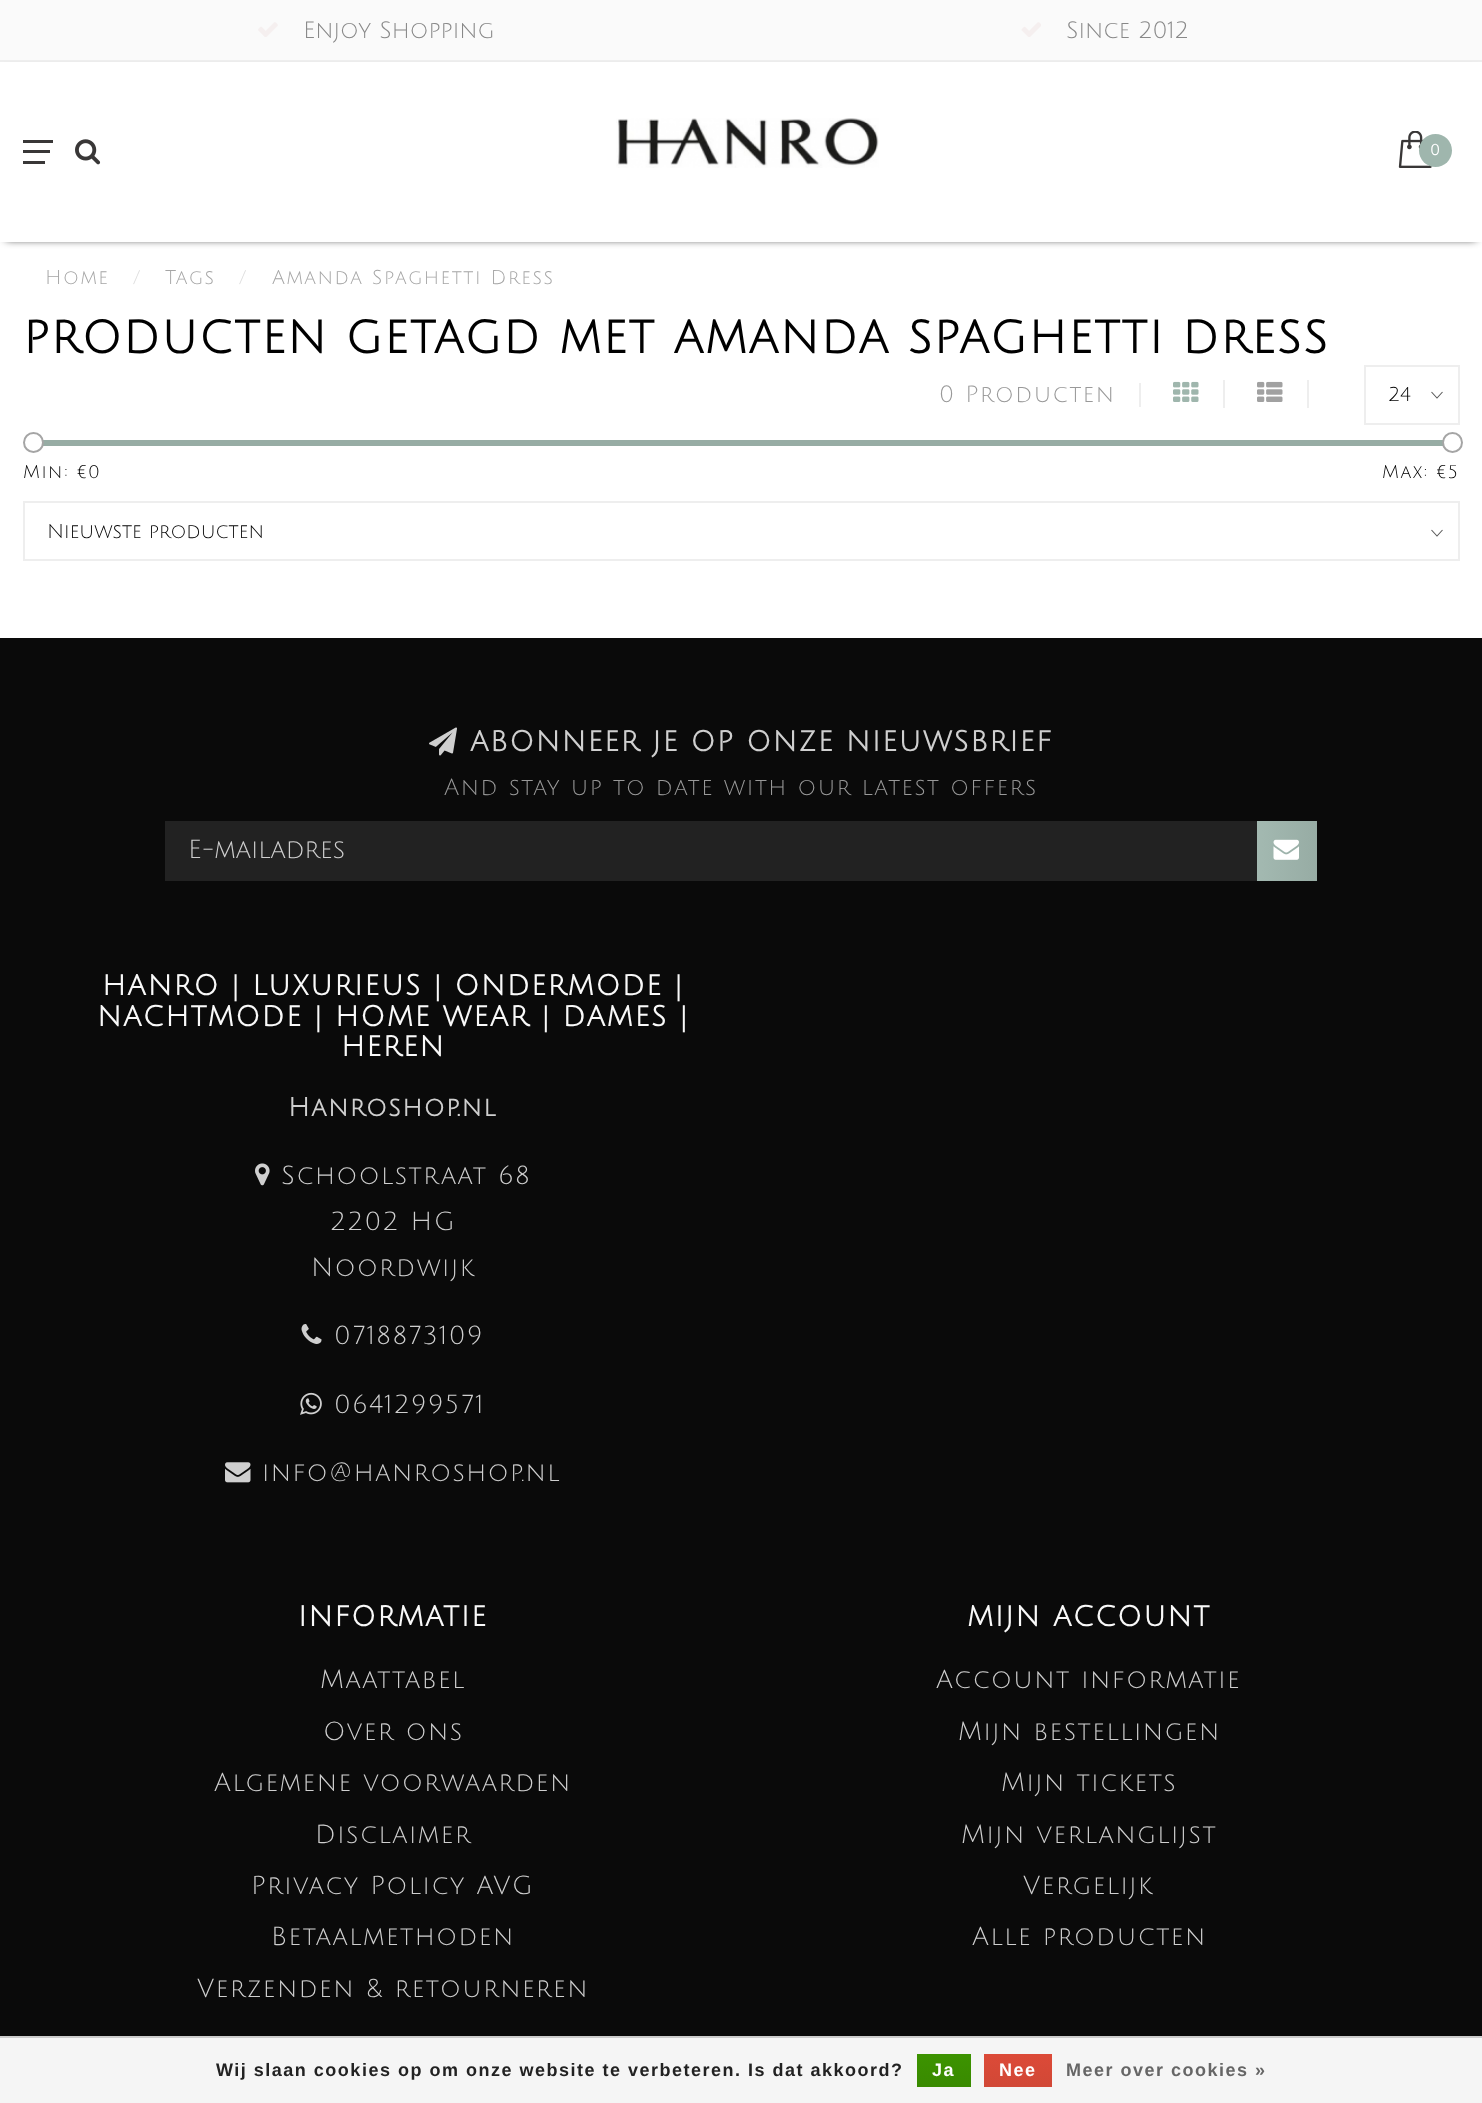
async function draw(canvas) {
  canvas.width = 1482;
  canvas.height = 2103;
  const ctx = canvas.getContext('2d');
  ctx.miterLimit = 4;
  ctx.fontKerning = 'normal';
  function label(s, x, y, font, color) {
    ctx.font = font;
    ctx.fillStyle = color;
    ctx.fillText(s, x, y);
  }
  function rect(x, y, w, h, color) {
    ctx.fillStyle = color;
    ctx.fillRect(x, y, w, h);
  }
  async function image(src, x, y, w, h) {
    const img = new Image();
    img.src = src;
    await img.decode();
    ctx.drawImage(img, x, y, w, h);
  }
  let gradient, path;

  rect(0, 0, 1482, 2103, '#fff');
  rect(0, 0, 1482, 60, '#fafafa');
  rect(0, 60, 1482, 2, '#eee');
  await image('assets/img1.png', 258, 22, 20, 15);
  label('Enjoy Shopping', 303, 38, '22.95px Julius Sans One', '#888');
  await image('assets/img2.png', 1021, 22, 20, 15);
  label('Since 2012', 1066, 38, '22.95px Julius Sans One', '#888');
  ctx.fillStyle = '#000';
  ctx.filter = 'blur(4px)';
  ctx.beginPath();
  ctx.rect(6, 71, 1470, 168);
  ctx.fill();
  ctx.filter = 'none';
  rect(0, 62, 1482, 180, '#fff');
  rect(23, 140, 30, 3, '#393737');
  rect(23, 150, 27, 3, '#393737');
  rect(23, 161, 22, 3, '#393737');
  await image('assets/img3.png', 75, 139, 26, 26);
  await image('assets/img4.png', 616, 118, 263, 50);
  await image('assets/img5.png', 1398, 131, 34, 37);
  ctx.fillStyle = '#9fb6ad';
  ctx.beginPath();
  ctx.arc(1435.5, 150.5, 16.5, 0, 2 * Math.PI);
  ctx.fill();
  ctx.letterSpacing = '1.5px';
  label('0', 1430, 155, 'bold 15px Julius Sans One', '#fff');
  label('Home', 45, 284, '19.5px Julius Sans One', '#a5a5a5');
  label('/', 133, 284, '19.5px Julius Sans One', '#ddd');
  label('Tags', 165, 284, '19.5px Julius Sans One', '#a5a5a5');
  label('/', 239, 284, '19.5px Julius Sans One', '#ddd');
  label('Amanda Spaghetti Dress', 272, 284, '19.5px Julius Sans One', '#a5a5a5');
  label('PRODUCTEN GETAGD MET AMANDA SPAGHETTI DRESS', 23, 353, 'bold 45px Julius Sans One', '#000');
  label('0 Producten', 939, 402, '22.95px Julius Sans One', '#999');
  rect(1139, 383, 2, 24, '#eee');
  rect(1223, 380, 2, 28, '#eee');
  await image('assets/img6.png', 1173, 381, 26, 21);
  rect(1307, 380, 2, 28, '#eee');
  await image('assets/img7.png', 1257, 381, 26, 21);
  path = new Path2D('M1442.5 392L1437 398L1431.5 392');
  ctx.strokeStyle = '#595959';
  ctx.lineWidth = 1.1;
  ctx.stroke(path);
  ctx.strokeStyle = '#eee';
  ctx.lineWidth = 2;
  ctx.strokeRect(1365, 366, 94, 58);
  ctx.letterSpacing = '0px';
  label('24', 1388, 401, '19.5px Julius Sans One', '#000');
  rect(38, 440, 1405, 6, '#97aca4');
  ctx.fillStyle = '#fff';
  ctx.beginPath();
  ctx.arc(33.5, 442.5, 9.5, 0, 2 * Math.PI);
  ctx.fill();
  ctx.strokeStyle = '#a5a5a5';
  ctx.stroke();
  ctx.beginPath();
  ctx.arc(1452.5, 442.5, 9.5, 0, 2 * Math.PI);
  ctx.fill();
  ctx.stroke();
  ctx.letterSpacing = '1.5px';
  label('Min: €0', 23, 478, '18px Julius Sans One', '#000');
  label('Max: €5', 1382, 478, '18px Julius Sans One', '#000');
  path = new Path2D('M1442.5 530L1437 536L1431.5 530');
  ctx.strokeStyle = '#595959';
  ctx.lineWidth = 1.1;
  ctx.stroke(path);
  ctx.strokeStyle = '#eee';
  ctx.lineWidth = 2;
  ctx.strokeRect(24, 502, 1435, 58);
  ctx.letterSpacing = '0px';
  label('Nieuwste producten', 47, 538, '19.5px Julius Sans One', '#000');
  rect(0, 638, 1482, 1398, '#0a0a0a');
  await image('assets/img8.png', 429, 727, 28, 29);
  ctx.letterSpacing = '1.5px';
  label('ABONNEER JE OP ONZE NIEUWSBRIEF', 470, 751, 'bold 28.05px Julius Sans One', '#cfcfcf');
  label('And stay up to date with our latest offers', 444, 795, '22.95px Julius Sans One', '#999');
  rect(165, 821, 1092, 60, '#222');
  ctx.letterSpacing = '0px';
  label('E-mailadres', 188, 858, '25.5px Julius Sans One', '#cfcfcf');
  gradient = ctx.createLinearGradient(1257, 851, 1317, 851);
  gradient.addColorStop(0, '#a3b9b1');
  gradient.addColorStop(1, '#97aca4');
  ctx.fillStyle = gradient;
  ctx.fillRect(1257, 821, 60, 60);
  await image('assets/img9.png', 1273, 839, 26, 21);
  ctx.letterSpacing = '1.5px';
  label('HANRO | LUXURIEUS | ONDERMODE |', 102, 995, 'bold 28.05px Julius Sans One', '#f9f9f9');
  label('NACHTMODE | HOME WEAR | DAMES |', 97, 1026, 'bold 28.05px Julius Sans One', '#f9f9f9');
  label('HEREN', 341, 1056, 'bold 28.05px Julius Sans One', '#f9f9f9');
  label('Hanroshop.nl', 288, 1116, 'bold 25.5px Julius Sans One', '#cfcfcf');
  await image('assets/img10.png', 255, 1163, 15, 23);
  label('Schoolstraat 68', 281, 1184, '25.5px Julius Sans One', '#cfcfcf');
  label('2202 HG', 330, 1230, '25.5px Julius Sans One', '#cfcfcf');
  label('Noordwijk', 311, 1276, '25.5px Julius Sans One', '#cfcfcf');
  await image('assets/img11.png', 301, 1324, 21, 20);
  label('0718873109', 334, 1344, '25.5px Julius Sans One', '#cfcfcf');
  await image('assets/img12.png', 300, 1392, 22, 23);
  label('0641299571', 334, 1413, '25.5px Julius Sans One', '#cfcfcf');
  await image('assets/img13.png', 225, 1462, 26, 21);
  label('info@hanroshop.nl', 262, 1481, '25.5px Julius Sans One', '#cfcfcf');
  label('INFORMATIE', 298, 1626, 'bold 28.05px Julius Sans One', '#f9f9f9');
  label('Maattabel', 320, 1688, '25.5px Julius Sans One', '#cfcfcf');
  label('Over ons', 323, 1740, '25.5px Julius Sans One', '#cfcfcf');
  label('Algemene voorwaarden', 214, 1791, '25.5px Julius Sans One', '#cfcfcf');
  label('Disclaimer', 315, 1843, '25.5px Julius Sans One', '#cfcfcf');
  label('Privacy Policy AVG', 251, 1894, '25.5px Julius Sans One', '#cfcfcf');
  label('Betaalmethoden', 271, 1945, '25.5px Julius Sans One', '#cfcfcf');
  label('Verzenden & retourneren', 197, 1997, '25.5px Julius Sans One', '#cfcfcf');
  label('MIJN ACCOUNT', 967, 1626, 'bold 28.05px Julius Sans One', '#f9f9f9');
  label('Account informatie', 936, 1688, '25.5px Julius Sans One', '#cfcfcf');
  label('Mijn bestellingen', 958, 1740, '25.5px Julius Sans One', '#cfcfcf');
  label('Mijn tickets', 1001, 1791, '25.5px Julius Sans One', '#cfcfcf');
  label('Mijn verlanglijst', 961, 1843, '25.5px Julius Sans One', '#cfcfcf');
  label('Vergelijk', 1023, 1894, '25.5px Julius Sans One', '#cfcfcf');
  label('Alle producten', 972, 1945, '25.5px Julius Sans One', '#cfcfcf');
  rect(0, 2038, 1482, 65, '#f5f5f5');
  rect(0, 2036, 1482, 2, '#ccc');
  label('Wij slaan cookies op om onze website te verbeteren. Is dat akkoord?', 216, 2076, 'bold 18px Liberation Sans', '#222');
  gradient = ctx.createLinearGradient(944, 2054, 944, 2087);
  gradient.addColorStop(0, '#3c9300');
  gradient.addColorStop(1, '#398a00');
  ctx.fillStyle = gradient;
  ctx.fillRect(917, 2054, 54, 33);
  label('Ja', 932, 2076, 'bold 18px Liberation Sans', '#fff');
  gradient = ctx.createLinearGradient(1018, 2054, 1018, 2087);
  gradient.addColorStop(0, '#dc4a38');
  gradient.addColorStop(1, '#d14836');
  ctx.fillStyle = gradient;
  ctx.fillRect(984, 2054, 68, 33);
  label('Nee', 999, 2076, 'bold 18px Liberation Sans', '#fff');
  label('Meer over cookies »', 1066, 2076, 'bold 18px Liberation Sans', '#666');
}

draw(document.querySelector('canvas'));
